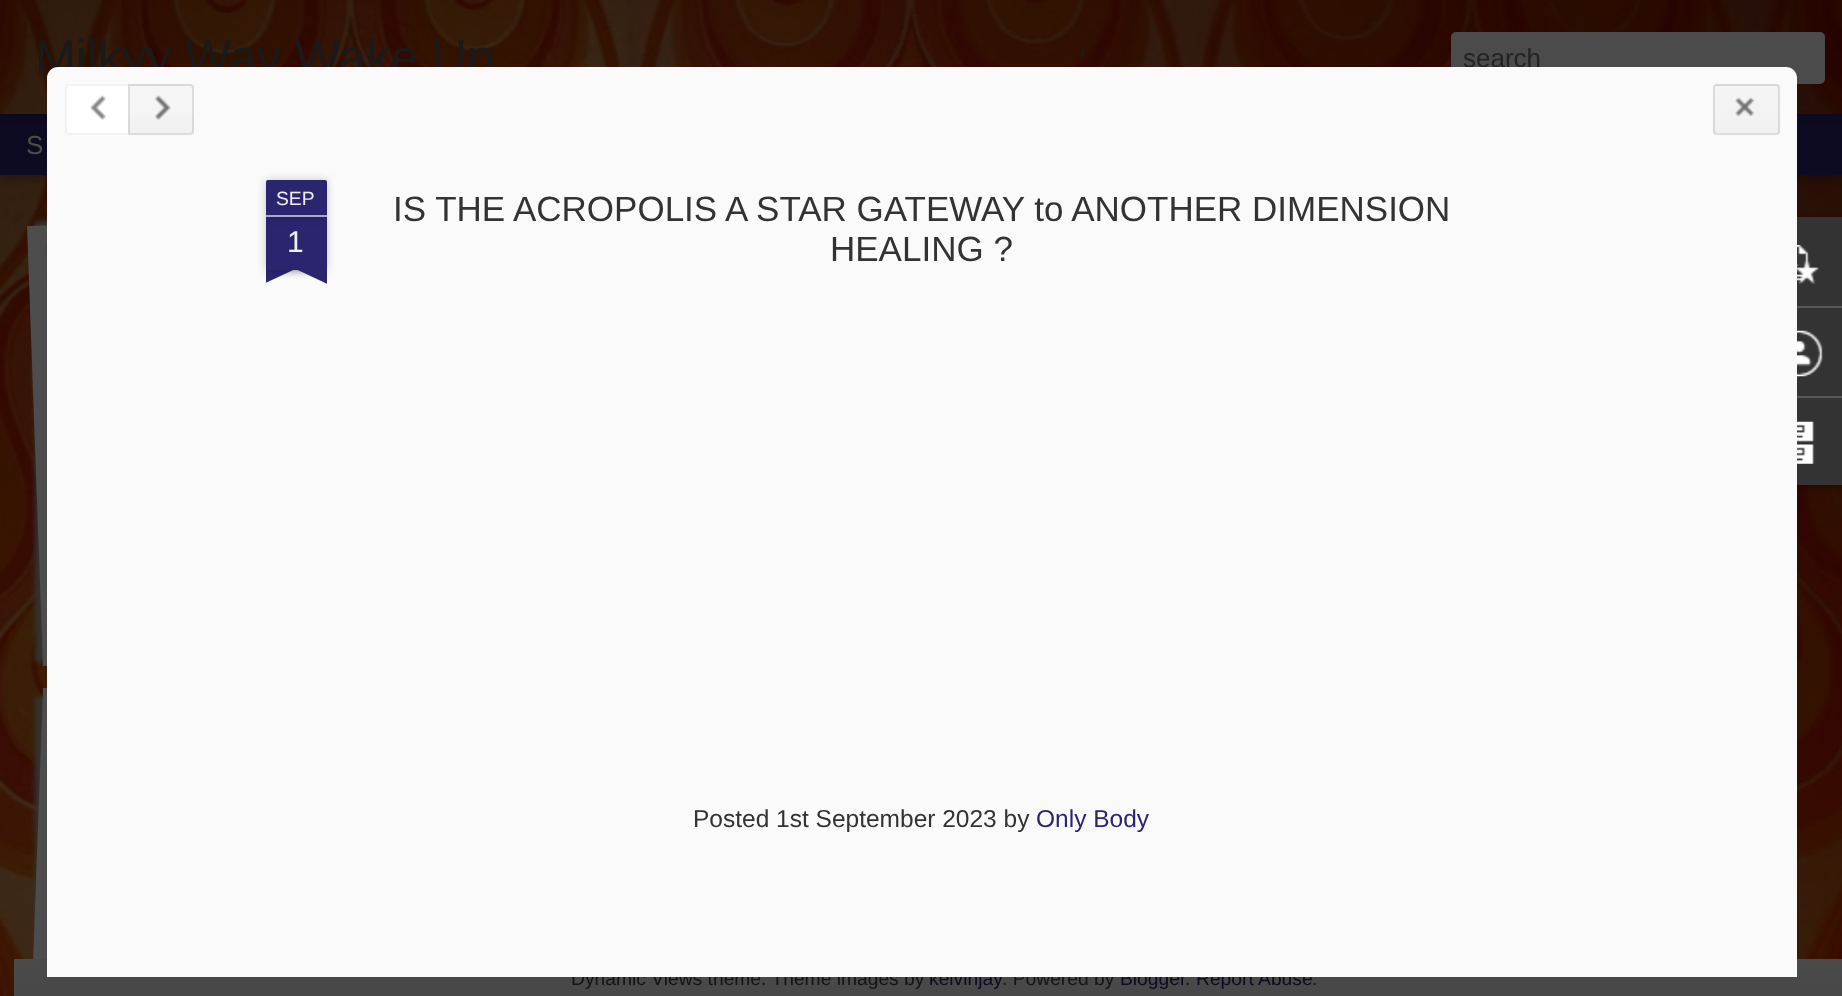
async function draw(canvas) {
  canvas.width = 1842;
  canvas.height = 996;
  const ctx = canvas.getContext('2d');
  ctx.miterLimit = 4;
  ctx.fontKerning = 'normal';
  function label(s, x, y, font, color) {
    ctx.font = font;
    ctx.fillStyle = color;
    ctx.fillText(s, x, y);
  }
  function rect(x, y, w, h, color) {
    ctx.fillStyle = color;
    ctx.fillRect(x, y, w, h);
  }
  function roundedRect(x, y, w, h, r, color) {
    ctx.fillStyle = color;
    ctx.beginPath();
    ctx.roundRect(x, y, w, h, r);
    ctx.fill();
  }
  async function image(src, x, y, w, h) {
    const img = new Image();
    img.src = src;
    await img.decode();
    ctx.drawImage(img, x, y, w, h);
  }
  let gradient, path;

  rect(0, 0, 1842, 996, '#fff');
  await image('assets/img1.png', 0, 175, 1842, 821);
  ctx.fillStyle = '#00000080';
  ctx.filter = 'blur(7px)';
  ctx.beginPath();
  ctx.rect(0, 114, 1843, 61);
  ctx.fill();
  ctx.filter = 'none';
  rect(0, 114, 1842, 61, '#0d0b21');
  ctx.fillStyle = '#0000004d';
  ctx.filter = 'blur(4.5px)';
  ctx.beginPath();
  ctx.rect(0, 0, 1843, 114);
  ctx.fill();
  ctx.filter = 'none';
  await image('assets/img2.png', 0, 0, 1842, 114);
  label('Milkyy Way Wake Up', 35, 74, '49px Liberation Sans', '#1a1a1a');
  label('\'', 1079, 74, '35px Liberation Sans', '#1a1a1a');
  roundedRect(1451, 32, 374, 52, 5, '#4b4b4b');
  label('search', 1463, 67, '26px Liberation Sans', '#232323');
  label('S', 26, 154, '26px Liberation Sans', '#4d4d4d');
  ctx.fillStyle = '#333';
  ctx.filter = 'blur(2.5px)';
  ctx.beginPath();
  ctx.rect(35, 221, 389, 441);
  ctx.fill();
  ctx.filter = 'none';
  ctx.fillStyle = '#4d4d4d';
  path = new Path2D('M27 226L416 212L431 653L43 666Z');
  ctx.fill(path);
  path = new Path2D('M46.5 243.5L398 231L410 582.5L58.5 595Z');
  ctx.strokeStyle = '#474747';
  ctx.lineWidth = 1.8;
  ctx.stroke(path);
  ctx.fillStyle = '#333';
  ctx.filter = 'blur(2.5px)';
  ctx.beginPath();
  ctx.rect(35, 697, 389, 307);
  ctx.fill();
  ctx.filter = 'none';
  ctx.fillStyle = '#4d4d4d';
  path = new Path2D('M43 688L431 702L416 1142L27 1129Z');
  ctx.fill(path);
  ctx.fillStyle = '#0000004d';
  ctx.filter = 'blur(2.5px)';
  ctx.beginPath();
  ctx.roundRect(1755, 219, 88, 268, 4);
  ctx.fill();
  ctx.filter = 'none';
  gradient = ctx.createLinearGradient(944, 959, 944, 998);
  gradient.addColorStop(0, '#4a4a4a');
  gradient.addColorStop(1, '#484848');
  ctx.fillStyle = gradient;
  ctx.fillRect(14, 959, 1828, 37);
  label('Dynamic Views theme. Theme images by', 571, 985, '19.25px Liberation Sans', '#141414');
  label('kelvinjay', 929, 985, '19.25px Liberation Sans', '#0d0b21');
  label('. Powered by', 1002, 985, '19.25px Liberation Sans', '#141414');
  label('Blogger', 1120, 985, '19.25px Liberation Sans', '#0d0b21');
  label('Report Abuse', 1196, 985, '19.25px Liberation Sans', '#0d0b21');
  ctx.fillStyle = '#fafafa';
  ctx.beginPath();
  ctx.roundRect(47, 67, 1750, 910, [11, 11, 0, 0]);
  ctx.fill();
  ctx.fillStyle = '#fff';
  ctx.beginPath();
  ctx.roundRect(66, 85, 64, 49, [3, 0, 0, 3]);
  ctx.fill();
  ctx.strokeStyle = '#f2f2f2';
  ctx.lineWidth = 2;
  ctx.stroke();
  await image('assets/img3.png', 90, 95, 16, 25);
  ctx.fillStyle = '#f5f5f5';
  ctx.beginPath();
  ctx.roundRect(128, 84, 66, 51, [0, 4, 4, 0]);
  ctx.fill();
  ctx.save();
  ctx.beginPath();
  ctx.roundRect(128, 84, 66, 51, [0, 4, 4, 0]);
  ctx.clip();
  gradient = ctx.createLinearGradient(161, 39, 161, 86);
  gradient.addColorStop(0, '#f5f5f5');
  gradient.addColorStop(1, '#f1f1f1');
  ctx.fillStyle = gradient;
  ctx.fillRect(128, 84, 66, 2);
  ctx.restore();
  gradient = ctx.createLinearGradient(161, 86, 161, 133);
  gradient.addColorStop(0, '#f5f5f5');
  gradient.addColorStop(1, '#f1f1f1');
  ctx.fillStyle = gradient;
  ctx.fillRect(128, 115, 66, 18);
  ctx.beginPath();
  ctx.roundRect(129, 85, 64, 49, [0, 3, 3, 0]);
  ctx.strokeStyle = '#0000001a';
  ctx.stroke();
  await image('assets/img4.png', 155, 95, 16, 25);
  roundedRect(1713, 84, 67, 51, 4, '#f5f5f5');
  ctx.save();
  ctx.beginPath();
  ctx.roundRect(1713, 84, 67, 51, 4);
  ctx.clip();
  gradient = ctx.createLinearGradient(1747, 39, 1747, 86);
  gradient.addColorStop(0, '#f5f5f5');
  gradient.addColorStop(1, '#f1f1f1');
  ctx.fillStyle = gradient;
  ctx.fillRect(1713, 84, 67, 2);
  gradient = ctx.createLinearGradient(1747, 86, 1747, 133);
  gradient.addColorStop(0, '#f5f5f5');
  gradient.addColorStop(1, '#f1f1f1');
  ctx.fillStyle = gradient;
  ctx.fillRect(1713, 86, 67, 47);
  ctx.restore();
  ctx.beginPath();
  ctx.roundRect(1714, 85, 65, 49, 3);
  ctx.stroke();
  await image('assets/img5.png', 1735, 97, 20, 20);
  ctx.fillStyle = '#00000033';
  ctx.filter = 'blur(4.5px)';
  ctx.beginPath();
  ctx.rect(266, 217, 61, 53);
  ctx.fill();
  ctx.filter = 'none';
  rect(266, 217, 61, 53, '#2b256f');
  ctx.fillStyle = '#00000033';
  ctx.filter = 'blur(4.5px)';
  ctx.beginPath();
  ctx.roundRect(266, 180, 61, 37, 2);
  ctx.fill();
  ctx.filter = 'none';
  ctx.fillStyle = '#2b256f';
  ctx.beginPath();
  ctx.roundRect(266, 180, 61, 37, [2, 2, 0, 0]);
  ctx.fill();
  rect(266, 215, 61, 2, '#aaa8c5');
  label('SEP', 276, 205, '19.25px Liberation Sans', '#eee');
  label('1', 287, 252, '30px Liberation Sans', '#eee');
  ctx.save();
  ctx.beginPath();
  ctx.rect(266, 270, 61, 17);
  ctx.clip();
  ctx.fillStyle = '#00000033';
  ctx.filter = 'blur(4.5px)';
  ctx.beginPath();
  ctx.rect(250, 252, 88, 18);
  ctx.fill();
  ctx.filter = 'none';
  ctx.restore();
  ctx.save();
  ctx.beginPath();
  ctx.rect(266, 270, 61, 17);
  ctx.clip();
  ctx.fillStyle = '#2b256f';
  path = new Path2D('M250 271L329 234L336 250L257 287Z');
  ctx.fill(path);
  ctx.restore();
  ctx.save();
  ctx.beginPath();
  ctx.rect(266, 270, 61, 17);
  ctx.clip();
  ctx.fillStyle = '#00000033';
  ctx.filter = 'blur(4.5px)';
  ctx.beginPath();
  ctx.rect(256, 252, 87, 18);
  ctx.fill();
  ctx.filter = 'none';
  ctx.restore();
  ctx.save();
  ctx.beginPath();
  ctx.rect(266, 270, 61, 17);
  ctx.clip();
  ctx.fillStyle = '#2b256f';
  path = new Path2D('M262 234L342 271L334 287L255 250Z');
  ctx.fill(path);
  ctx.restore();
  label('IS THE ACROPOLIS A STAR GATEWAY to ANOTHER DIMENSION', 393, 221, '35px Liberation Sans', '#333');
  label('HEALING ?', 830, 261, '35px Liberation Sans', '#333');
  label('Posted 1st September 2023 by', 693, 827, '24.5px Liberation Sans', '#333');
  label('Only Body', 1036, 827, '24.5px Liberation Sans', '#2b256f');
  rect(1797, 308, 45, 88, '#333');
  rect(1797, 217, 45, 89, '#333');
  await image('assets/img6.png', 1797, 245, 22, 39);
  rect(1797, 306, 45, 2, '#585858');
  await image('assets/img7.png', 1797, 330, 26, 47);
  rect(1797, 398, 45, 87, '#333');
  rect(1797, 396, 45, 2, '#585858');
  await image('assets/img8.png', 1797, 421, 18, 43);
  label('.', 1185, 985, '19.25px Liberation Sans', '#141414');
  label('.', 1312, 985, '19.25px Liberation Sans', '#141414');
}

draw(document.querySelector('canvas'));
